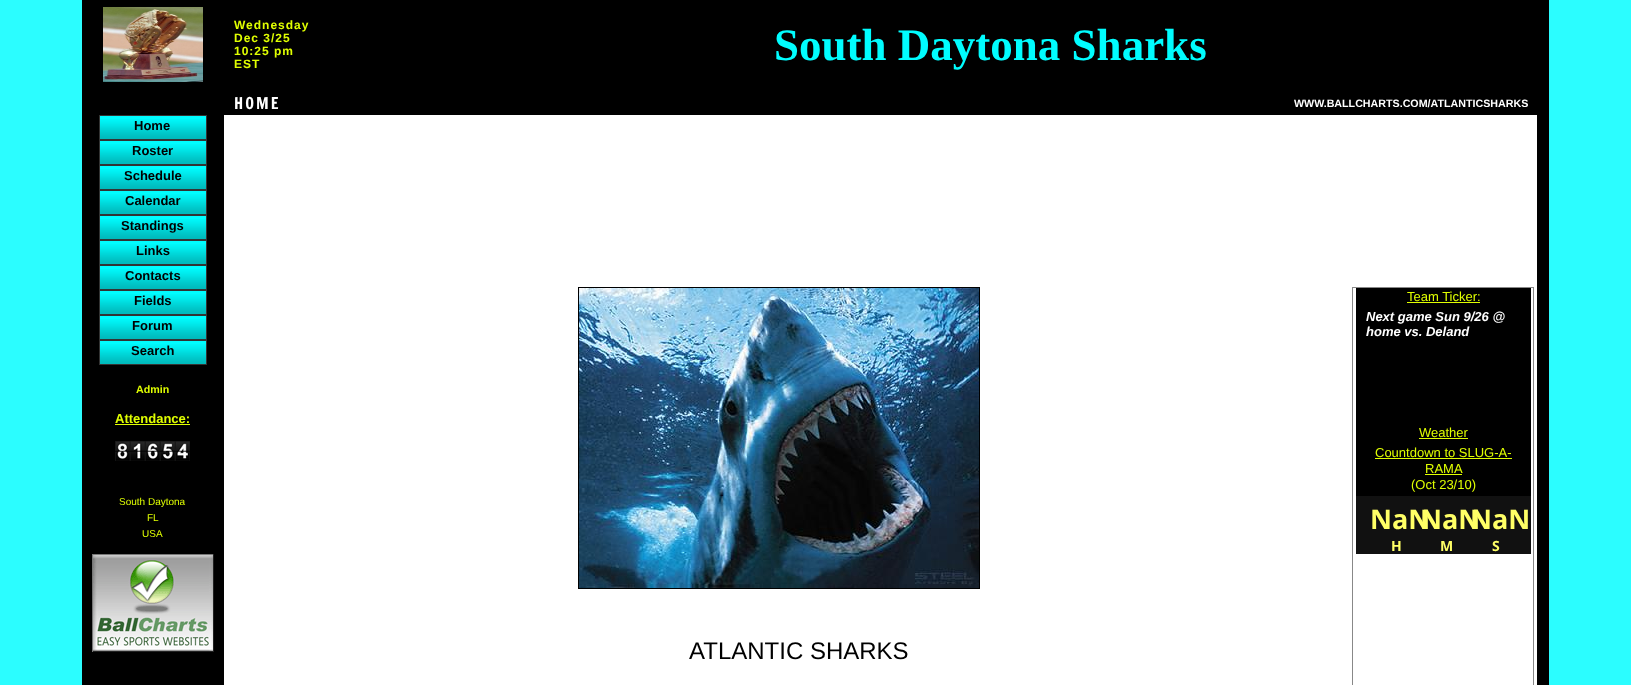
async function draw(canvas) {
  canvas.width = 1631;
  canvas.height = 685;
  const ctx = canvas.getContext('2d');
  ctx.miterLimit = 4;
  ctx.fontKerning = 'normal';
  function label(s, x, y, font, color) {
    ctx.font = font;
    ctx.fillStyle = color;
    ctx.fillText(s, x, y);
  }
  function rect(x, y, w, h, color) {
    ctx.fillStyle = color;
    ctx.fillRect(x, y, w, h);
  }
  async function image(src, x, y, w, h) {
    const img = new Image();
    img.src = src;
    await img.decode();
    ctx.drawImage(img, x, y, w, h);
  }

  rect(0, 0, 1631, 685, '#2bfdff');
  rect(82, 0, 1467, 90, '#000');
  await image('assets/img1.png', 103, 7, 100, 75);
  ctx.letterSpacing = '1px';
  label('Wednesday', 234, 29, 'bold 12px Liberation Sans', '#e0ff00');
  label('Dec 3/25', 234, 42, 'bold 12px Liberation Sans', '#e0ff00');
  label('10:25 pm', 234, 55, 'bold 12px Liberation Sans', '#e0ff00');
  label('EST', 234, 68, 'bold 12px Liberation Sans', '#e0ff00');
  ctx.letterSpacing = '0px';
  label('South Daytona Sharks', 774, 60, 'bold 45px Liberation Serif', '#00fdff');
  rect(82, 90, 1467, 25, '#000');
  ctx.letterSpacing = '2px';
  label('HOME', 234, 109, '16px Francois One', '#fff');
  ctx.letterSpacing = '0px';
  label('WWW.BALLCHARTS.COM/ATLANTICSHARKS', 1294, 107, 'bold 10.7px Liberation Sans', '#fff');
  rect(82, 115, 142, 570, '#000');
  ctx.strokeStyle = '#333';
  ctx.strokeRect(99.5, 115.5, 107, 24);
  rect(100, 116, 106, 23, '#00fdff');
  await image('assets/img2.png', 100, 119, 106, 20);
  label('Home', 134, 130, 'bold 13px Liberation Sans', '#000');
  ctx.strokeRect(99.5, 140.5, 107, 24);
  rect(100, 141, 106, 23, '#00fdff');
  await image('assets/img2.png', 100, 144, 106, 20);
  label('Roster', 132, 155, 'bold 13px Liberation Sans', '#000');
  ctx.strokeRect(99.5, 165.5, 107, 24);
  rect(100, 166, 106, 23, '#00fdff');
  await image('assets/img2.png', 100, 169, 106, 20);
  label('Schedule', 124, 180, 'bold 13px Liberation Sans', '#000');
  ctx.strokeRect(99.5, 190.5, 107, 24);
  rect(100, 191, 106, 23, '#00fdff');
  await image('assets/img2.png', 100, 194, 106, 20);
  label('Calendar', 125, 205, 'bold 13px Liberation Sans', '#000');
  ctx.strokeRect(99.5, 215.5, 107, 24);
  rect(100, 216, 106, 23, '#00fdff');
  await image('assets/img2.png', 100, 219, 106, 20);
  label('Standings', 121, 230, 'bold 13px Liberation Sans', '#000');
  ctx.strokeRect(99.5, 240.5, 107, 24);
  rect(100, 241, 106, 23, '#00fdff');
  await image('assets/img2.png', 100, 244, 106, 20);
  label('Links', 136, 255, 'bold 13px Liberation Sans', '#000');
  ctx.strokeRect(99.5, 265.5, 107, 24);
  rect(100, 266, 106, 23, '#00fdff');
  await image('assets/img2.png', 100, 269, 106, 20);
  label('Contacts', 125, 280, 'bold 13px Liberation Sans', '#000');
  ctx.strokeRect(99.5, 290.5, 107, 24);
  rect(100, 291, 106, 23, '#00fdff');
  await image('assets/img2.png', 100, 294, 106, 20);
  label('Fields', 134, 305, 'bold 13px Liberation Sans', '#000');
  ctx.strokeRect(99.5, 315.5, 107, 24);
  rect(100, 316, 106, 23, '#00fdff');
  await image('assets/img2.png', 100, 319, 106, 20);
  label('Forum', 132, 330, 'bold 13px Liberation Sans', '#000');
  ctx.strokeRect(99.5, 340.5, 107, 24);
  rect(100, 341, 106, 23, '#00fdff');
  await image('assets/img2.png', 100, 344, 106, 20);
  label('Search', 131, 355, 'bold 13px Liberation Sans', '#000');
  label('Admin', 136, 393, 'bold 10.7px Liberation Sans', '#e0ff00');
  label('Attendance:', 115, 423, 'bold 13px Liberation Sans', '#e0ff00');
  rect(115, 424, 75, 1, '#e0ff00');
  await image('assets/img3.png', 115, 441, 15, 20);
  await image('assets/img4.png', 130, 441, 15, 20);
  await image('assets/img5.png', 145, 441, 15, 20);
  await image('assets/img6.png', 160, 441, 15, 20);
  await image('assets/img7.png', 175, 441, 15, 20);
  label('South Daytona', 119, 505, '10px Liberation Sans', '#e0ff00');
  label('FL', 147, 521, '10px Liberation Sans', '#e0ff00');
  label('USA', 142, 537, '10px Liberation Sans', '#e0ff00');
  rect(92, 554, 122, 1, '#777');
  rect(213, 554, 1, 98, '#222');
  rect(92, 651, 122, 1, '#222');
  rect(92, 554, 1, 98, '#777');
  await image('assets/img8.png', 93, 555, 120, 96);
  rect(224, 115, 1313, 570, '#fff');
  ctx.strokeStyle = '#000';
  ctx.strokeRect(578.5, 287.5, 401, 301);
  await image('assets/img9.png', 579, 288, 400, 300);
  ctx.strokeStyle = '#888';
  ctx.strokeRect(1352.5, 287.5, 181, 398);
  rect(1356, 288, 175, 208, '#000');
  label('Team Ticker:', 1407, 301, '13px Liberation Sans', '#e0ff00');
  rect(1407, 302, 73, 1, '#e0ff00');
  label('Next game Sun 9/26 @', 1366, 321, 'italic bold 13px Liberation Sans', '#fff');
  label('home vs. Deland', 1366, 336, 'italic bold 13px Liberation Sans', '#fff');
  label('Weather', 1419, 437, '13px Liberation Sans', '#e0ff00');
  rect(1419, 438, 49, 1, '#e0ff00');
  label('Countdown to SLUG-A-', 1375, 457, '13px Liberation Sans', '#e0ff00');
  rect(1375, 458, 137, 1, '#e0ff00');
  label('RAMA', 1425, 473, '13px Liberation Sans', '#e0ff00');
  rect(1425, 474, 37, 1, '#e0ff00');
  label('(Oct 23/10)', 1411, 489, '13px Liberation Sans', '#e0ff00');
  rect(1356, 496, 175, 58, '#111');
  label('NaN', 1370, 529, 'bold 27px Open Sans', '#ff6');
  label('H', 1391, 551, 'bold 14px Open Sans', '#ff6');
  label('NaN', 1420, 529, 'bold 27px Open Sans', '#ff6');
  label('M', 1440, 551, 'bold 14px Open Sans', '#ff6');
  label('NaN', 1470, 529, 'bold 27px Open Sans', '#ff6');
  label('S', 1492, 551, 'bold 14px Open Sans', '#ff6');
  label('ATLANTIC SHARKS', 689, 659, '24px Liberation Sans', '#000');
  rect(1537, 115, 12, 570, '#000');
}

draw(document.querySelector('canvas'));
